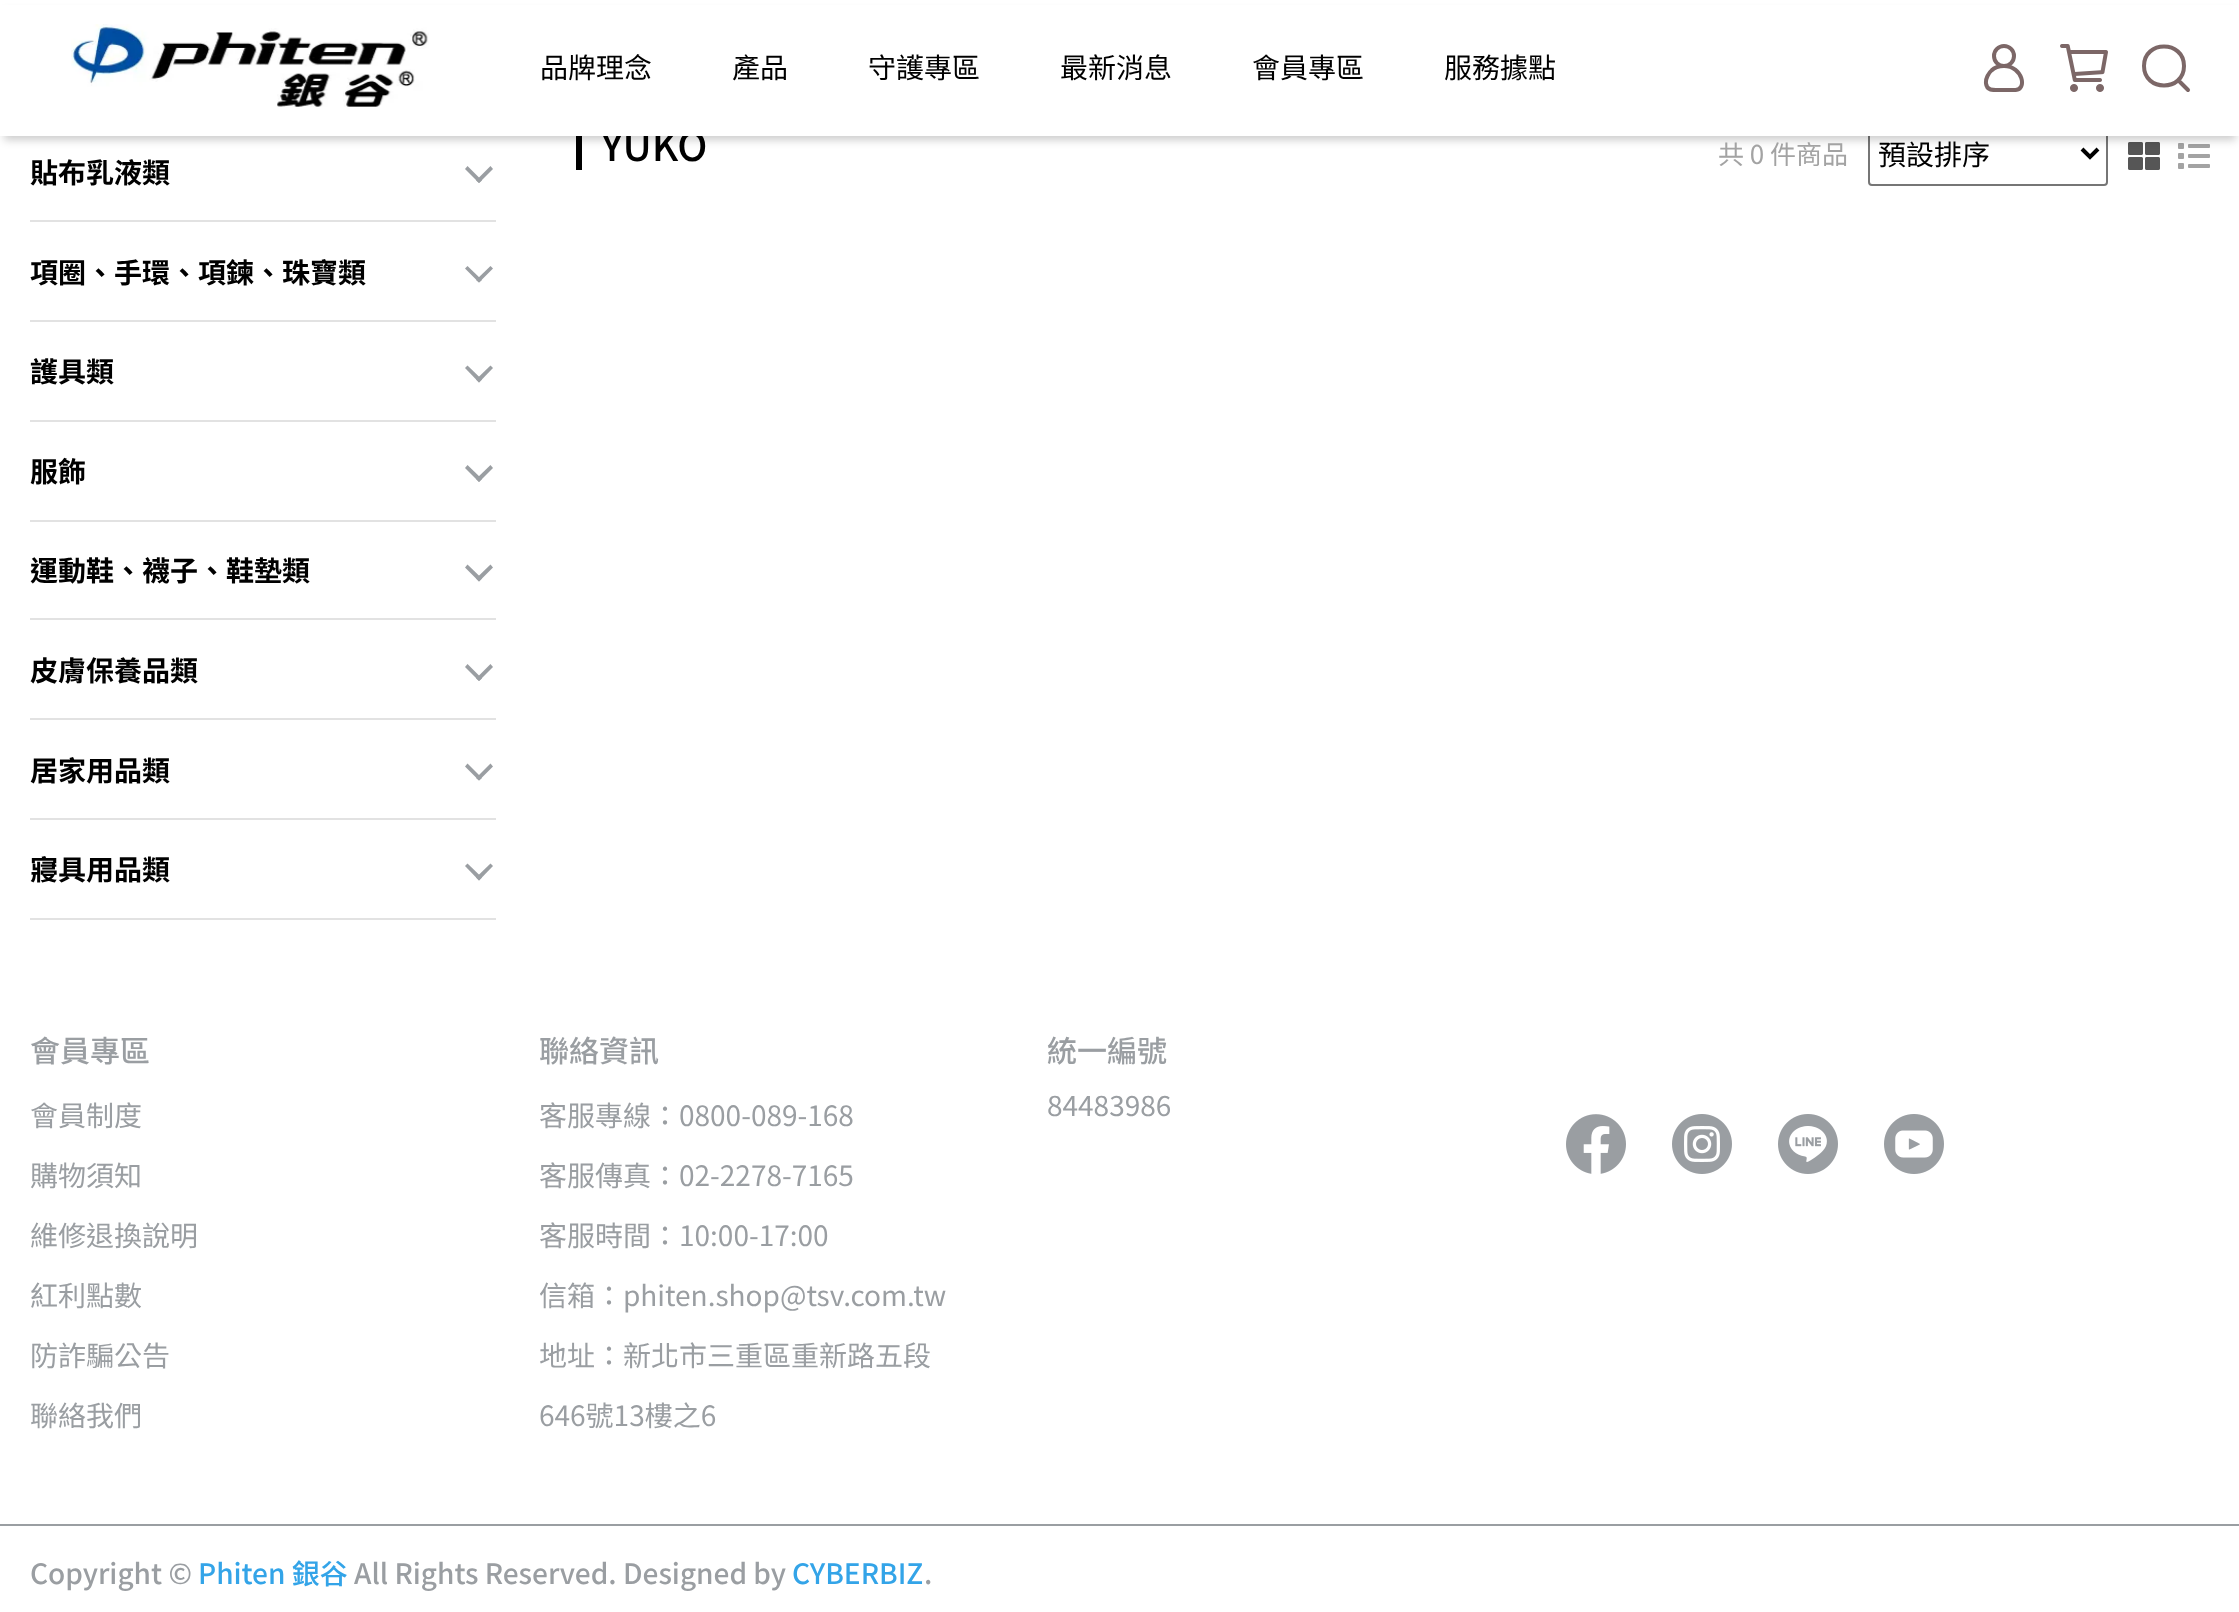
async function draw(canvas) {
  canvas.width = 2239;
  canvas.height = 1612;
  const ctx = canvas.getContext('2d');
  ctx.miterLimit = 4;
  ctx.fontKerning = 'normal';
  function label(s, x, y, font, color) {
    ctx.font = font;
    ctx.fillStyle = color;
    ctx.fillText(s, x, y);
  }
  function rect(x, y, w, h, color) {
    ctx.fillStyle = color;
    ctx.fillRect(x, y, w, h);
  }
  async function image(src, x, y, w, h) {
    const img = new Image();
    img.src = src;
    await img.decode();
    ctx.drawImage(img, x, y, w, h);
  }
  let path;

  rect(0, 0, 2239, 1612, '#fff');
  rect(576, 136, 6, 34, '#000');
  ctx.beginPath();
  ctx.roundRect(1869, 123, 238, 62, 3);
  ctx.strokeStyle = '#767676';
  ctx.lineWidth = 2;
  ctx.stroke();
  path = new Path2D('M2082 149L2090 157L2098 149');
  ctx.strokeStyle = '#000';
  ctx.lineWidth = 4;
  ctx.stroke(path);
  await image('assets/img3.png', 2128, 142, 32, 28);
  await image('assets/img4.png', 2178, 143, 32, 26);
  ctx.fillStyle = '#00000033';
  ctx.filter = 'blur(4px)';
  ctx.beginPath();
  ctx.rect(4, 12, 2232, 128);
  ctx.fill();
  ctx.filter = 'none';
  label('YUKO', 601, 161, '500 40px Noto Sans TC', '#000');
  rect(0, 5, 2239, 131, '#fff');
  await image('assets/img1.png', 71, 24, 358, 83);
  label('品牌理念', 540, 78, '28px Noto Sans TC', '#000');
  label('產品', 732, 78, '28px Noto Sans TC', '#000');
  label('守護專區', 868, 78, '28px Noto Sans TC', '#000');
  label('最新消息', 1060, 78, '28px Noto Sans TC', '#000');
  label('會員專區', 1252, 78, '28px Noto Sans TC', '#000');
  label('服務據點', 1444, 78, '28px Noto Sans TC', '#000');
  ctx.beginPath();
  ctx.arc(2004, 56, 10, 0, 2 * Math.PI);
  ctx.strokeStyle = '#7c6767';
  ctx.stroke();
  ctx.save();
  ctx.beginPath();
  ctx.rect(1980, 44, 48, 48);
  ctx.clip();
  path = new Path2D('M2015 90H2000.5C1997 90 1993.5 90.5 1990.5 89.5C1984.5 87.5 1985.5 80 1987.5 76C1988.5 74 1989.5 72 1991.5 70.5C1994.5 67.5 1999.5 66 2004 66C2023 66 2027.5 90.5 2015 90Z');
  ctx.stroke(path);
  ctx.restore();
  await image('assets/img2.png', 2060, 44, 48, 48);
  path = new Path2D('M2184 66C2184 92 2144 92 2144 66C2144 40 2184 40 2184 66ZM2180 82L2188 90');
  ctx.lineCap = 'round';
  ctx.lineJoin = 'round';
  ctx.stroke(path);
  label('共 0 件商品', 1718, 164, '26px Noto Sans TC', '#a3a3a3');
  label('預設排序', 1878, 165, '28px Noto Sans TC', '#000');
  rect(30, 220, 466, 2, '#e2e2e2');
  label('貼布乳液類', 30, 183, 'bold 28px Noto Sans TC', '#000');
  ctx.fillStyle = '#9a9ea2';
  path = new Path2D('M476 180.5L490.5 166L493 169L479 183Z');
  ctx.fill(path);
  path = new Path2D('M465 169L467.5 166L482 180.5L479 183Z');
  ctx.fill(path);
  rect(30, 320, 466, 2, '#e2e2e2');
  label('項圈、手環、項鍊、珠寶類', 30, 283, 'bold 28px Noto Sans TC', '#000');
  ctx.fillStyle = '#9a9ea2';
  path = new Path2D('M476 280L490.5 266L493 268.5L479 282.5Z');
  ctx.fill(path);
  path = new Path2D('M465 268.5L467.5 266L482 280L479 282.5Z');
  ctx.fill(path);
  rect(30, 420, 466, 2, '#e2e2e2');
  label('護具類', 30, 382, 'bold 28px Noto Sans TC', '#000');
  ctx.fillStyle = '#9a9ea2';
  path = new Path2D('M476 379.5L490.5 365.5L493 368L479 382.5Z');
  ctx.fill(path);
  path = new Path2D('M465 368L467.5 365.5L482 379.5L479 382.5Z');
  ctx.fill(path);
  rect(30, 520, 466, 2, '#e2e2e2');
  label('服飾', 30, 482, 'bold 28px Noto Sans TC', '#000');
  ctx.fillStyle = '#9a9ea2';
  path = new Path2D('M476 479L490.5 465L493 468L479 482Z');
  ctx.fill(path);
  path = new Path2D('M465 468L467.5 465L482 479L479 482Z');
  ctx.fill(path);
  rect(30, 618, 466, 2, '#e2e2e2');
  label('運動鞋、襪子、鞋墊類', 30, 581, 'bold 28px Noto Sans TC', '#000');
  ctx.fillStyle = '#9a9ea2';
  path = new Path2D('M476 578.5L490.5 564.5L493 567.5L479 581.5Z');
  ctx.fill(path);
  path = new Path2D('M465 567.5L467.5 564.5L482 578.5L479 581.5Z');
  ctx.fill(path);
  rect(30, 718, 466, 2, '#e2e2e2');
  label('皮膚保養品類', 30, 681, 'bold 28px Noto Sans TC', '#000');
  ctx.fillStyle = '#9a9ea2';
  path = new Path2D('M476 678.5L490.5 664L493 667L479 681Z');
  ctx.fill(path);
  path = new Path2D('M465 667L467.5 664L482 678.5L479 681Z');
  ctx.fill(path);
  rect(30, 818, 466, 2, '#e2e2e2');
  label('居家用品類', 30, 781, 'bold 28px Noto Sans TC', '#000');
  ctx.fillStyle = '#9a9ea2';
  path = new Path2D('M476 778L490.5 763.5L493 766.5L479 780.5Z');
  ctx.fill(path);
  path = new Path2D('M465 766.5L467.5 763.5L482 778L479 780.5Z');
  ctx.fill(path);
  rect(30, 918, 466, 2, '#e2e2e2');
  label('寢具用品類', 30, 880, 'bold 28px Noto Sans TC', '#000');
  ctx.fillStyle = '#9a9ea2';
  path = new Path2D('M476 877.5L490.5 863.5L493 866L479 880.5Z');
  ctx.fill(path);
  path = new Path2D('M465 866L467.5 863.5L482 877.5L479 880.5Z');
  ctx.fill(path);
  label('會員專區', 30, 1062, '500 30px Noto Sans TC', '#9a9ea2');
  label('會員制度', 30, 1126, '28px Noto Sans TC', '#9a9ea2');
  label('購物須知', 30, 1186, '28px Noto Sans TC', '#9a9ea2');
  label('維修退換說明', 30, 1246, '28px Noto Sans TC', '#9a9ea2');
  label('紅利點數', 30, 1306, '28px Noto Sans TC', '#9a9ea2');
  label('防詐騙公告', 30, 1366, '28px Noto Sans TC', '#9a9ea2');
  label('聯絡我們', 30, 1426, '28px Noto Sans TC', '#9a9ea2');
  label('聯絡資訊', 539, 1062, '500 30px Noto Sans TC', '#9a9ea2');
  label('客服專線：0800-089-168', 539, 1126, '28px Noto Sans TC', '#9a9ea2');
  label('客服傳真：02-2278-7165', 539, 1186, '28px Noto Sans TC', '#9a9ea2');
  label('客服時間：10:00-17:00', 539, 1246, '28px Noto Sans TC', '#9a9ea2');
  label('信箱：phiten.shop@tsv.com.tw', 539, 1306, '28px Noto Sans TC', '#9a9ea2');
  label('地址：新北市三重區重新路五段', 539, 1366, '28px Noto Sans TC', '#9a9ea2');
  label('646號13樓之6', 539, 1426, '28px Noto Sans TC', '#9a9ea2');
  label('統一編號', 1047, 1062, '500 30px Noto Sans TC', '#9a9ea2');
  label('84483986', 1047, 1116, '28px Noto Sans TC', '#9a9ea2');
  await image('assets/img5.png', 1566, 1114, 60, 60);
  await image('assets/img6.png', 1672, 1114, 60, 60);
  await image('assets/img7.png', 1778, 1114, 60, 60);
  await image('assets/img8.png', 1884, 1114, 60, 60);
  rect(0, 1524, 2239, 2, '#9a9ea2');
  label('Copyright ©', 30, 1584, '500 28px Noto Sans TC', '#9a9ea2');
  label('Phiten 銀谷', 198, 1584, '500 28px Noto Sans TC', '#33a4e8');
  label('All Rights Reserved. Designed by', 354, 1584, '500 28px Noto Sans TC', '#9a9ea2');
  label('CYBERBIZ', 792, 1584, '500 28px Noto Sans TC', '#33a4e8');
  label('.', 924, 1584, '500 28px Noto Sans TC', '#9a9ea2');
}

draw(document.querySelector('canvas'));
